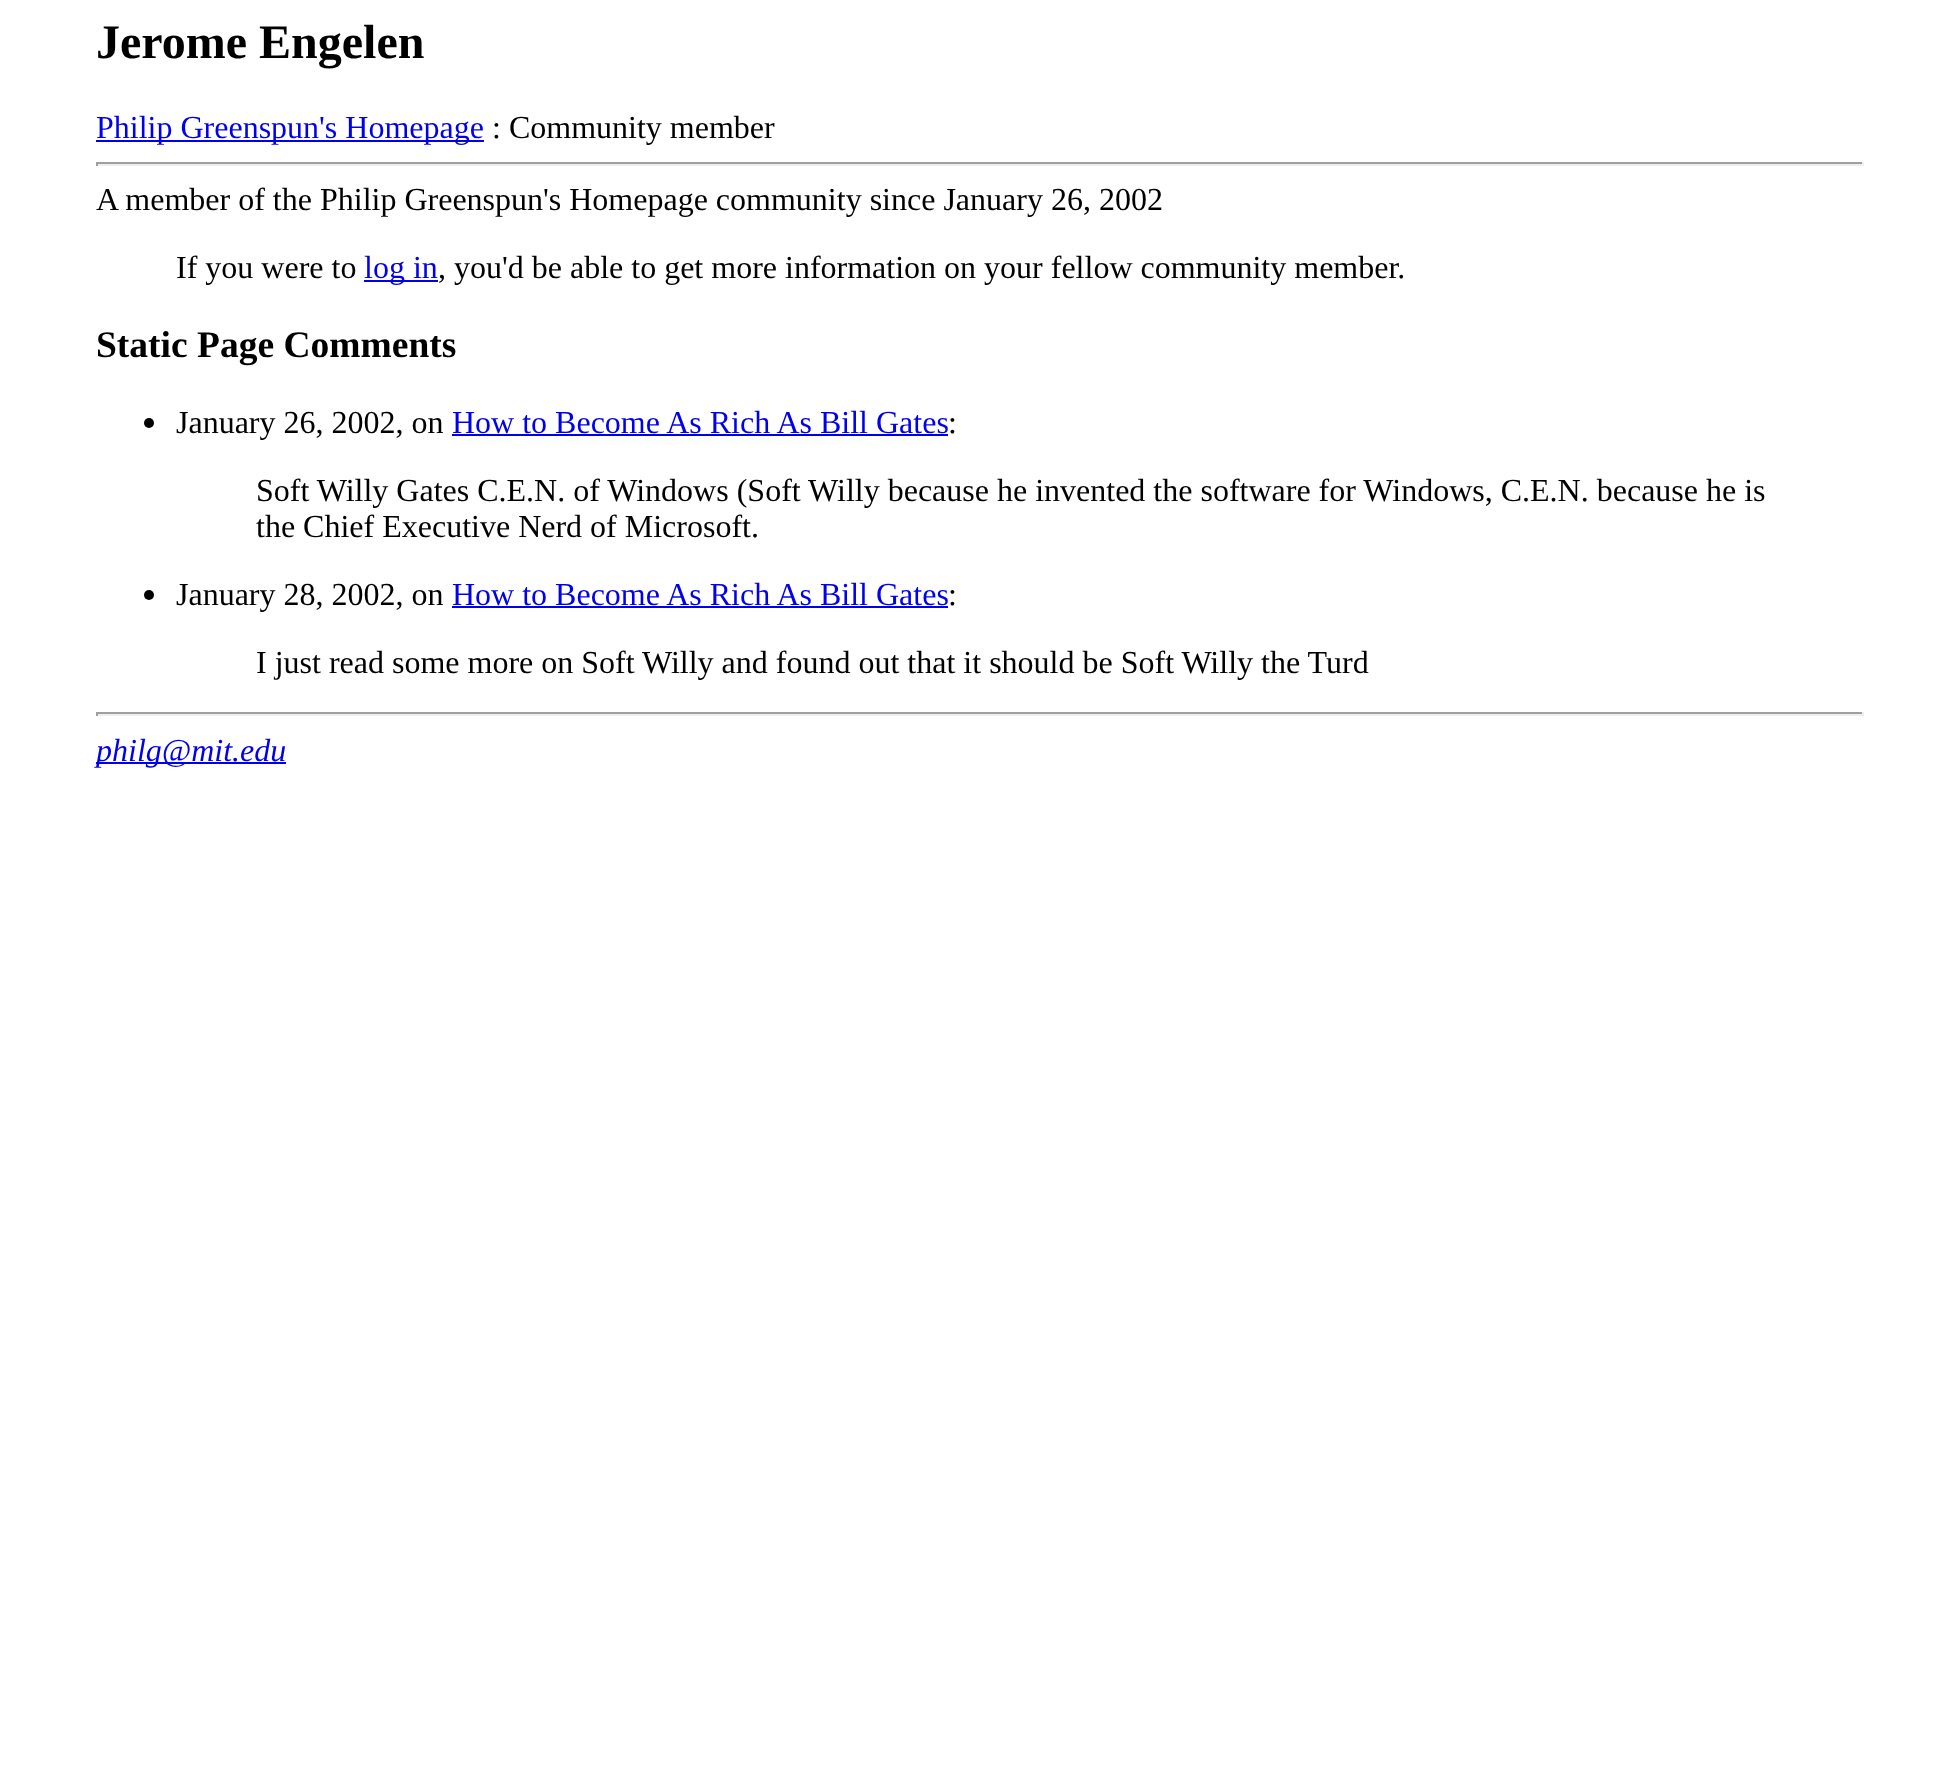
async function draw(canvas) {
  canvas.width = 1960;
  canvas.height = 1775;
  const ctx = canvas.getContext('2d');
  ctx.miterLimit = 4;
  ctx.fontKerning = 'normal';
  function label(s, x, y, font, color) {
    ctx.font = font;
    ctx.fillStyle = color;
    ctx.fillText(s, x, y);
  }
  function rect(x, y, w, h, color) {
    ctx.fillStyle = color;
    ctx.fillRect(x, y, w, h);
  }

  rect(0, 0, 1960, 1775, '#fff');
  label('Jerome Engelen', 96, 58, 'bold 48px Liberation Serif', '#000');
  rect(96, 140, 388, 2, '#00e');
  label('Philip Greenspun\'s Homepage', 96, 138, '32px Liberation Serif', '#00e');
  label(': Community member', 492, 138, '32px Liberation Serif', '#000');
  rect(96, 162, 1768, 2, '#9f9f9f');
  rect(1862, 162, 2, 4, '#eee');
  rect(96, 164, 1768, 2, '#eee');
  rect(96, 162, 2, 4, '#9f9f9f');
  label('A member of the Philip Greenspun\'s Homepage community since January 26, 2002', 96, 210, '32px Liberation Serif', '#000');
  label('If you were to', 176, 278, '32px Liberation Serif', '#000');
  rect(364, 280, 74, 2, '#00e');
  label('log in', 364, 278, '32px Liberation Serif', '#00e');
  label(', you\'d be able to get more information on your fellow community member.', 438, 278, '32px Liberation Serif', '#000');
  label('Static Page Comments', 96, 357, 'bold 37.5px Liberation Serif', '#000');
  ctx.beginPath();
  ctx.arc(149, 423, 5, 0, 2 * Math.PI);
  ctx.fill();
  label('January 26, 2002, on', 176, 433, '32px Liberation Serif', '#000');
  label('How to Become As Rich As Bill Gates', 452, 433, '32px Liberation Serif', '#00e');
  rect(452, 434, 496, 2, '#00e');
  label(':', 948, 433, '32px Liberation Serif', '#000');
  label('Soft Willy Gates C.E.N. of Windows (Soft Willy because he invented the software for Windows, C.E.N. because he is', 256, 501, '32px Liberation Serif', '#000');
  label('the Chief Executive Nerd of Microsoft.', 256, 537, '32px Liberation Serif', '#000');
  ctx.beginPath();
  ctx.arc(149, 595, 5, 0, 2 * Math.PI);
  ctx.fill();
  label('January 28, 2002, on', 176, 605, '32px Liberation Serif', '#000');
  label('How to Become As Rich As Bill Gates', 452, 605, '32px Liberation Serif', '#00e');
  rect(452, 606, 496, 2, '#00e');
  label(':', 948, 605, '32px Liberation Serif', '#000');
  label('I just read some more on Soft Willy and found out that it should be Soft Willy the Turd', 256, 673, '32px Liberation Serif', '#000');
  rect(96, 712, 1768, 2, '#9f9f9f');
  rect(1862, 712, 2, 4, '#eee');
  rect(96, 714, 1768, 2, '#eee');
  rect(96, 712, 2, 4, '#9f9f9f');
  rect(96, 762, 190, 2, '#00e');
  label('philg@mit.edu', 96, 761, 'italic 32px Liberation Serif', '#00e');
}

draw(document.querySelector('canvas'));
